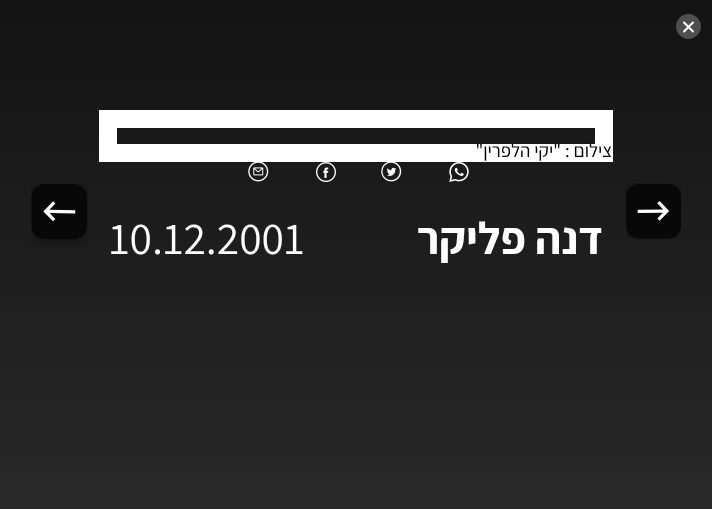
async function draw(canvas) {
  canvas.width = 712;
  canvas.height = 509;
  const ctx = canvas.getContext('2d');
  ctx.miterLimit = 4;
  ctx.fontKerning = 'normal';
  function label(s, x, y, font, color) {
    ctx.font = font;
    ctx.fillStyle = color;
    ctx.fillText(s, x, y);
  }
  function rect(x, y, w, h, color) {
    ctx.fillStyle = color;
    ctx.fillRect(x, y, w, h);
  }
  async function image(src, x, y, w, h) {
    const img = new Image();
    img.src = src;
    await img.decode();
    ctx.drawImage(img, x, y, w, h);
  }
  let gradient, path;

  rect(0, 0, 712, 509, '#fff');
  gradient = ctx.createLinearGradient(356, 0, 356, 509);
  gradient.addColorStop(0.03, '#141414');
  gradient.addColorStop(0.97, '#282828');
  ctx.fillStyle = gradient;
  ctx.fillRect(0, 0, 712, 509);
  ctx.fillStyle = '#4e4e4e';
  ctx.beginPath();
  ctx.arc(688.5, 26.5, 12.5, 0, 2 * Math.PI);
  ctx.fill();
  path = new Path2D('M684 22.5L693 31.5M693 22.5L684 31.5');
  ctx.strokeStyle = '#fff';
  ctx.lineWidth = 2;
  ctx.lineCap = 'round';
  ctx.stroke(path);
  ctx.lineWidth = 18;
  ctx.strokeRect(108, 119, 496, 34);
  ctx.direction = 'rtl';
  label('צילום', 612, 157, '19px Assistant', '#000');
  ctx.direction = 'ltr';
  label(':', 565, 157, '19px Assistant', '#000');
  ctx.direction = 'rtl';
  label('"יקי הלפרין"', 561, 157, '19px Assistant', '#000');
  await image('assets/img1.png', 449, 162, 20, 20);
  await image('assets/img2.png', 381, 162, 21, 20);
  await image('assets/img3.png', 316, 162, 20, 20);
  await image('assets/img4.png', 248, 162, 21, 20);
  label('דנה פליקר', 603, 254, 'bold 45.5px Assistant', '#fff');
  ctx.direction = 'ltr';
  label('10.12.2001', 109, 254, '45.5px Assistant', '#fff');
  await image('assets/img5.png', 626, 183, 55, 56);
  await image('assets/img6.png', 31, 184, 57, 63);
}

draw(document.querySelector('canvas'));
